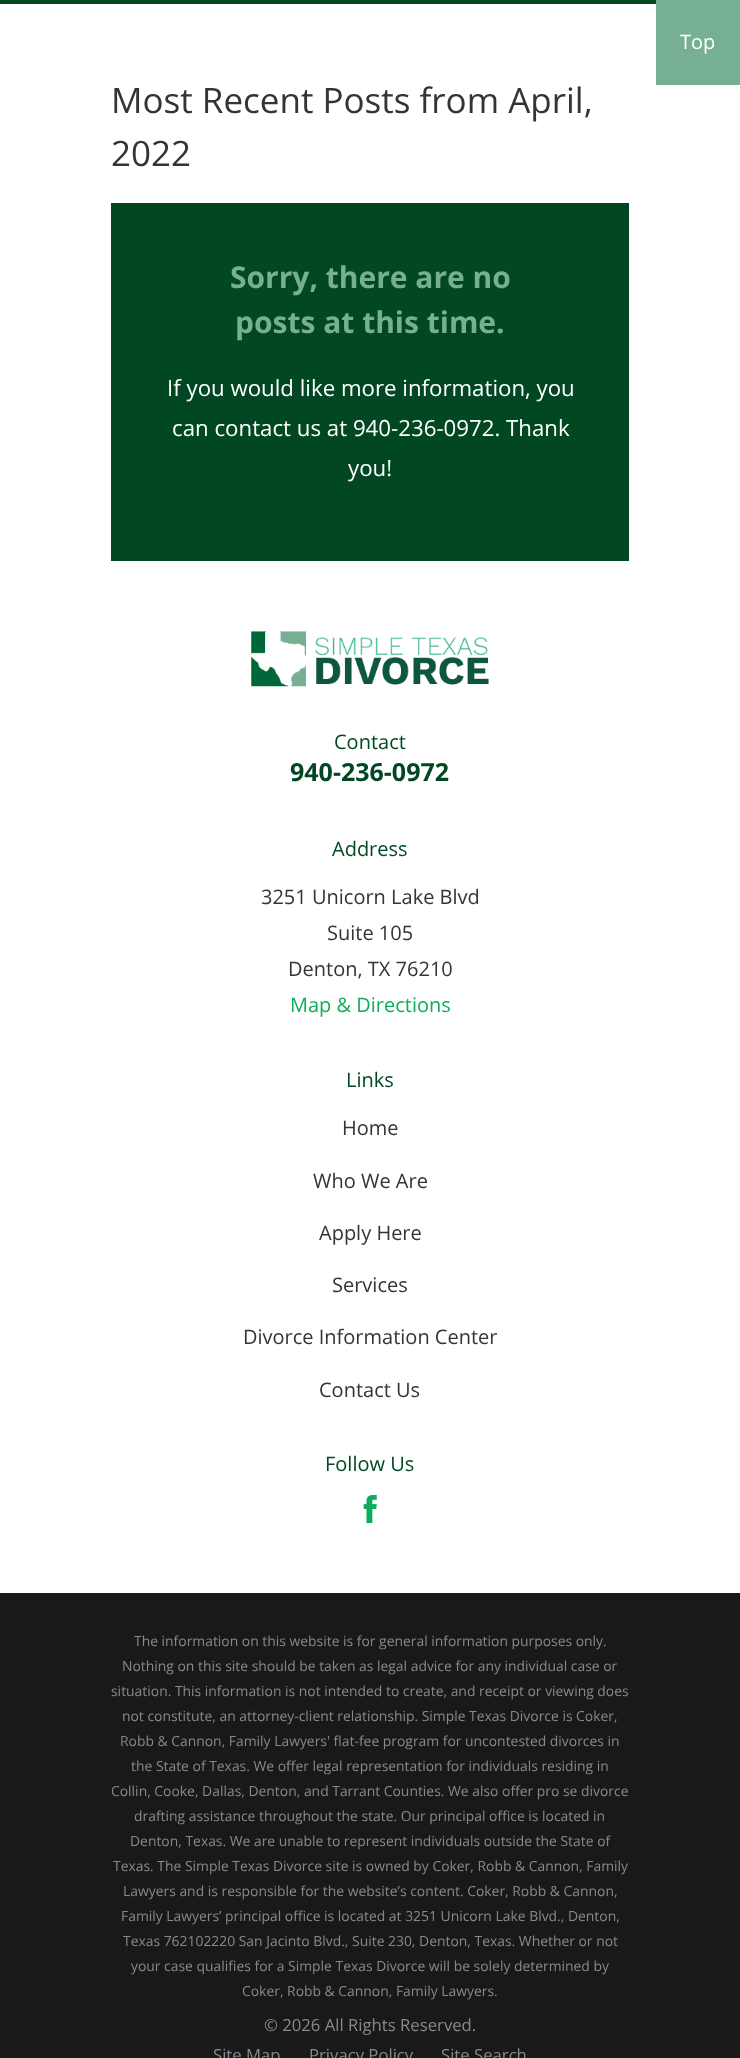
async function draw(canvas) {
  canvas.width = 740;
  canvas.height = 2058;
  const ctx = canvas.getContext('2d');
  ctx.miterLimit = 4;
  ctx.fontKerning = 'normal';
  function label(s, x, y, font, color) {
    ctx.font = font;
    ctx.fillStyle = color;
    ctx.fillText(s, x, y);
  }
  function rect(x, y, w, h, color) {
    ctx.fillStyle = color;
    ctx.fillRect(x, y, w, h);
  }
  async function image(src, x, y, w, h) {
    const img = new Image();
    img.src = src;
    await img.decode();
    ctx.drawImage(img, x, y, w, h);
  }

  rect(0, 0, 740, 2058, '#fff');
  rect(656, 0, 84, 85, '#76af92');
  label('Top', 680, 49, '20px Open Sans', '#fff');
  rect(0, 0, 656, 4, '#014822');
  label('Most Recent Posts from April,', 111, 113, '35px Open Sans', '#343434');
  label('2022', 111, 166, '35px Open Sans', '#343434');
  rect(111, 203, 518, 358, '#014822');
  label('Sorry, there are no', 230, 288, 'bold 30px Open Sans', '#76af92');
  label('posts at this time.', 235, 333, 'bold 30px Open Sans', '#76af92');
  label('If you would like more information, you', 167, 396, '22.25px Open Sans', '#fff');
  label('can contact us at 940-236-0972. Thank', 172, 436, '22.25px Open Sans', '#fff');
  label('you!', 348, 476, '22.25px Open Sans', '#fff');
  await image('assets/img1.png', 251, 631, 238, 56);
  label('Contact', 334, 749, '20px Open Sans', '#014822');
  label('940-236-0972', 290, 781, 'bold 25px Open Sans', '#014822');
  label('Address', 332, 856, '20px Open Sans', '#014822');
  label('3251 Unicorn Lake Blvd', 261, 904, '20px Open Sans', '#343434');
  label('Suite 105', 327, 940, '20px Open Sans', '#343434');
  label('Denton, TX 76210', 288, 976, '20px Open Sans', '#343434');
  label('Map & Directions', 290, 1012, '20px Open Sans', '#10ac5d');
  label('Links', 346, 1087, '20px Open Sans', '#014822');
  label('Home', 342, 1135, '20px Open Sans', '#343434');
  label('Who We Are', 313, 1188, '20px Open Sans', '#343434');
  label('Apply Here', 319, 1240, '20px Open Sans', '#343434');
  label('Services', 332, 1292, '20px Open Sans', '#343434');
  label('Divorce Information Center', 243, 1344, '20px Open Sans', '#343434');
  label('Contact Us', 319, 1397, '20px Open Sans', '#343434');
  label('Follow Us', 325, 1471, '20px Open Sans', '#014822');
  await image('assets/img2.png', 363, 1495, 14, 28);
  rect(0, 1593, 740, 465, '#191919');
  label('The information on this website is for general information purposes only.', 134, 1646, '13.9px Open Sans', '#86898f');
  label('Nothing on this site should be taken as legal advice for any individual case or', 122, 1671, '13.9px Open Sans', '#86898f');
  label('situation. This information is not intended to create, and receipt or viewing does', 111, 1696, '13.9px Open Sans', '#86898f');
  label('not constitute, an attorney-client relationship. Simple Texas Divorce is Coker,', 122, 1721, '13.9px Open Sans', '#86898f');
  label('Robb & Cannon, Family Lawyers\' flat-fee program for uncontested divorces in', 120, 1746, '13.9px Open Sans', '#86898f');
  label('the State of Texas. We offer legal representation for individuals residing in', 131, 1771, '13.9px Open Sans', '#86898f');
  label('Collin, Cooke, Dallas, Denton, and Tarrant Counties. We also offer pro se divorce', 111, 1796, '13.9px Open Sans', '#86898f');
  label('drafting assistance throughout the state. Our principal office is located in', 134, 1821, '13.9px Open Sans', '#86898f');
  label('Denton, Texas. We are unable to represent individuals outside the State of', 130, 1846, '13.9px Open Sans', '#86898f');
  label('Texas. The Simple Texas Divorce site is owned by Coker, Robb & Cannon, Family', 113, 1871, '13.9px Open Sans', '#86898f');
  label('Lawyers and is responsible for the website’s content. Coker, Robb & Cannon,', 123, 1896, '13.9px Open Sans', '#86898f');
  label('Family Lawyers’ principal office is located at 3251 Unicorn Lake Blvd., Denton,', 121, 1921, '13.9px Open Sans', '#86898f');
  label('Texas 762102220 San Jacinto Blvd., Suite 230, Denton, Texas. Whether or not', 123, 1946, '13.9px Open Sans', '#86898f');
  label('your case qualifies for a Simple Texas Divorce will be solely determined by', 131, 1971, '13.9px Open Sans', '#86898f');
  label('Coker, Robb & Cannon, Family Lawyers.', 242, 1996, '13.9px Open Sans', '#86898f');
  label('© 2026 All Rights Reserved.', 264, 2031, '16.7px Open Sans', '#86898f');
  label('Site Map', 213, 2061, '16.7px Open Sans', '#86898f');
  label('Privacy Policy', 309, 2061, '16.7px Open Sans', '#86898f');
  label('Site Search', 441, 2061, '16.7px Open Sans', '#86898f');
}

draw(document.querySelector('canvas'));
